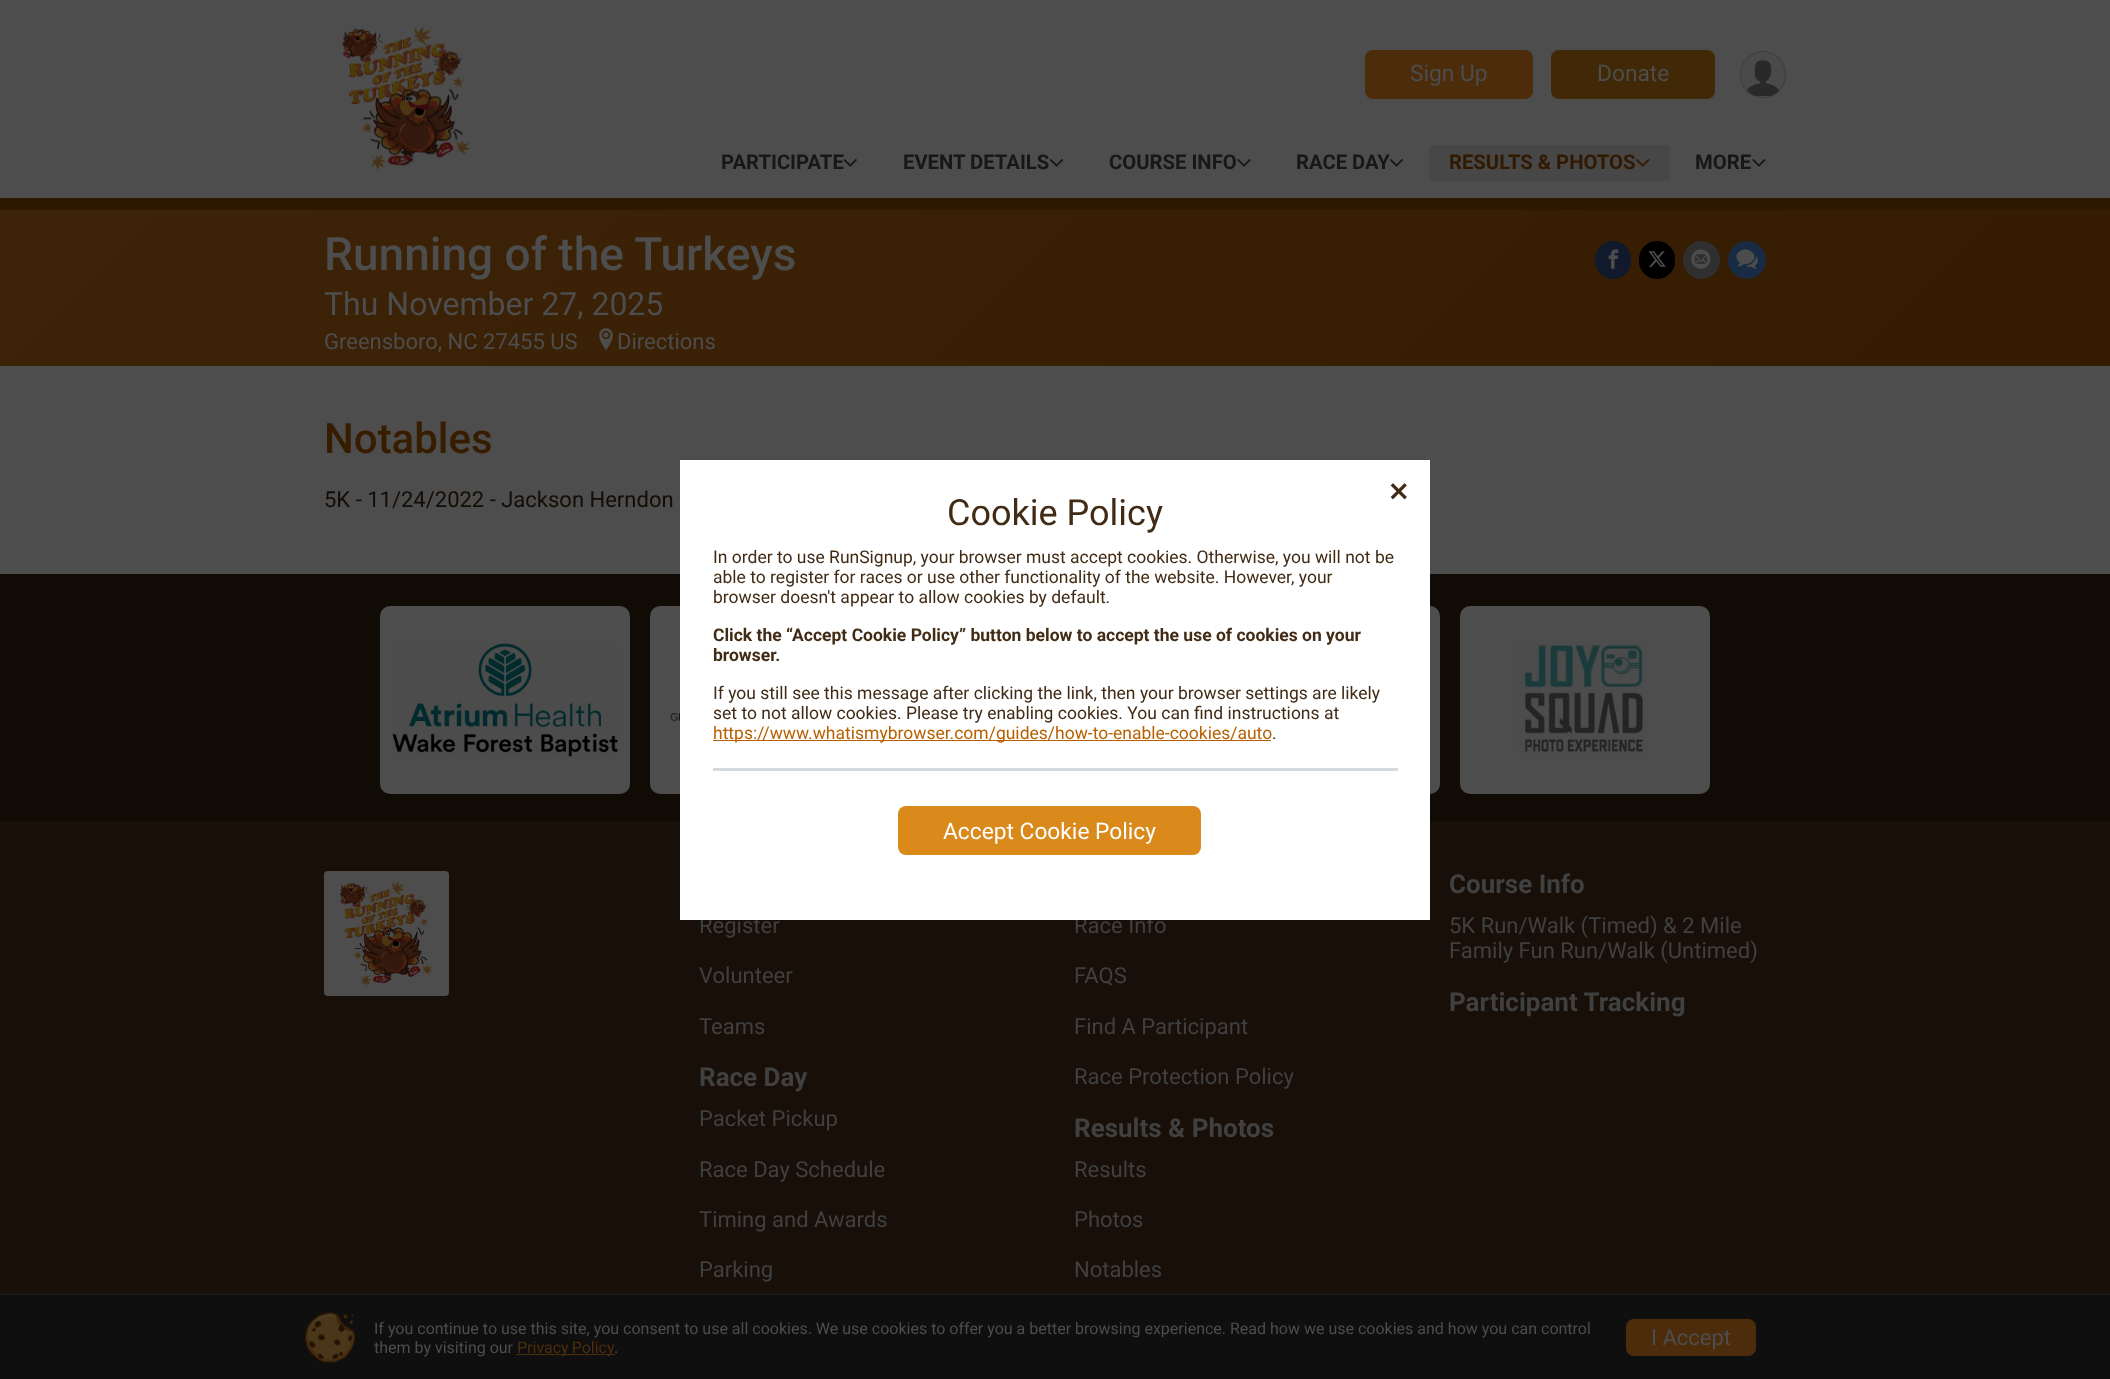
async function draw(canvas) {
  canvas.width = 2110;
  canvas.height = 1379;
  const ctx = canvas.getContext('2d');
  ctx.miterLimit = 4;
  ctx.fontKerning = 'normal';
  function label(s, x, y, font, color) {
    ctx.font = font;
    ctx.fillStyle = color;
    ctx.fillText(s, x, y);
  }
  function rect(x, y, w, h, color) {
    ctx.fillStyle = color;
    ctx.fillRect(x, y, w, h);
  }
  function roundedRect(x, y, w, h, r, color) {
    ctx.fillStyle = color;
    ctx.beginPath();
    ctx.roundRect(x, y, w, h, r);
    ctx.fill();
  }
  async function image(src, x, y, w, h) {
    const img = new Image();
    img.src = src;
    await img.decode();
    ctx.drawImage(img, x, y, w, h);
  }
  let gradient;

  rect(0, 0, 2110, 1379, '#4d4d4d');
  await image('assets/img1.png', 342, 26, 128, 144);
  roundedRect(1365, 50, 168, 49, 8, '#4c2c0b');
  label('Sign Up', 1410, 81, '22.75px Roboto', '#4d4d4d');
  roundedRect(1551, 50, 164, 49, 8, '#412908');
  label('Donate', 1597, 81, '22.75px Roboto', '#4d4d4d');
  await image('assets/img2.png', 1741, 53, 44, 43);
  ctx.beginPath();
  ctx.roundRect(1740.5, 51.5, 45, 46, 22.5);
  ctx.strokeStyle = '#3d3d3d';
  ctx.stroke();
  label('PARTICIPATE', 721, 169, 'bold 20.25px Roboto', '#171717');
  await image('assets/img3.png', 843, 159, 14, 8);
  label('EVENT DETAILS', 903, 169, 'bold 20.25px Roboto', '#171717');
  await image('assets/img4.png', 1049, 159, 15, 8);
  label('COURSE INFO', 1109, 169, 'bold 20.25px Roboto', '#171717');
  await image('assets/img5.png', 1237, 159, 14, 8);
  await image('assets/img4.png', 1389, 159, 15, 8);
  label('RACE DAY', 1296, 169, 'bold 20.25px Roboto', '#171717');
  roundedRect(1429, 145, 241, 36, 4, '#474747');
  label('RESULTS & PHOTOS', 1449, 169, 'bold 20.25px Roboto', '#311900');
  await image('assets/img6.png', 1636, 159, 14, 8);
  label('MORE', 1695, 169, 'bold 20.25px Roboto', '#171717');
  await image('assets/img5.png', 1752, 159, 14, 8);
  gradient = ctx.createLinearGradient(1622, 855, 488, -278);
  gradient.addColorStop(0, '#351c00');
  gradient.addColorStop(1, '#3d2308');
  ctx.fillStyle = gradient;
  ctx.fillRect(0, 210, 2110, 156);
  rect(0, 198, 2110, 12, '#2e1800');
  label('Running of the Turkeys', 324, 270, '500 46px Roboto', '#4d4d4d');
  label('Thu November 27, 2025', 324, 315, '32px Roboto', '#4d4d4d');
  label('Greensboro, NC 27455 US', 324, 349, '22px Roboto', '#4d4d4d');
  await image('assets/img7.png', 599, 328, 14, 22);
  label('Directions', 617, 349, '22px Roboto', '#4d4d4d');
  roundedRect(1595, 241, 36, 38, 18, '#11192d');
  await image('assets/img8.png', 1608, 249, 11, 20);
  roundedRect(1639, 241, 36, 38, 18, '#000');
  await image('assets/img9.png', 1648, 251, 18, 16);
  roundedRect(1683, 241, 37, 38, 18.5, '#2f2f2f');
  await image('assets/img10.png', 1691, 249, 20, 20);
  ctx.fillStyle = '#172c44';
  ctx.beginPath();
  ctx.arc(1747, 260, 19, 0, 2 * Math.PI);
  ctx.fill();
  await image('assets/img11.png', 1736, 249, 22, 20);
  label('Notables', 324, 453, '500 42px Roboto', '#371d00');
  label('5K - 11/24/2022 - Jackson Herndon', 324, 507, '22px Roboto', '#140d06');
  rect(0, 574, 2110, 247, '#100b05');
  roundedRect(380, 606, 250, 188, 10, '#4d4d4d');
  await image('assets/img12.png', 392, 643, 226, 114);
  roundedRect(650, 606, 250, 188, 10, '#4d4d4d');
  await image('assets/img13.png', 670, 713, 10, 9);
  roundedRect(1190, 606, 250, 188, 10, '#4d4d4d');
  roundedRect(1460, 606, 250, 188, 10, '#4d4d4d');
  await image('assets/img14.png', 1517, 644, 130, 111);
  rect(0, 821, 2110, 473, '#170f08');
  roundedRect(324, 871, 125, 125, 4, '#4d4d4d');
  await image('assets/img15.png', 340, 881, 93, 106);
  label('Register', 699, 933, '22px Roboto', '#404040');
  label('Volunteer', 699, 983, '22px Roboto', '#404040');
  label('Teams', 699, 1034, '22px Roboto', '#404040');
  label('Race Day', 699, 1086, 'bold 26px Roboto', '#404040');
  label('Packet Pickup', 699, 1126, '22px Roboto', '#404040');
  label('Race Day Schedule', 699, 1177, '22px Roboto', '#404040');
  label('Timing and Awards', 699, 1227, '22px Roboto', '#404040');
  label('Parking', 699, 1277, '22px Roboto', '#404040');
  label('Race Info', 1074, 933, '22px Roboto', '#404040');
  label('FAQS', 1074, 983, '22px Roboto', '#404040');
  label('Find A Participant', 1074, 1034, '22px Roboto', '#404040');
  label('Race Protection Policy', 1074, 1084, '22px Roboto', '#404040');
  label('Results & Photos', 1074, 1137, 'bold 26px Roboto', '#404040');
  label('Results', 1074, 1177, '22px Roboto', '#404040');
  label('Photos', 1074, 1227, '22px Roboto', '#404040');
  label('Notables', 1074, 1277, '22px Roboto', '#404040');
  label('Course Info', 1449, 893, 'bold 26px Roboto', '#404040');
  label('5K Run/Walk (Timed) & 2 Mile', 1449, 933, '22px Roboto', '#404040');
  label('Family Fun Run/Walk (Untimed)', 1449, 958, '22px Roboto', '#404040');
  label('Participant Tracking', 1449, 1011, 'bold 26px Roboto', '#404040');
  ctx.strokeStyle = '#fff';
  ctx.strokeRect(680.5, 460.5, 749, 459);
  rect(681, 461, 748, 458, '#fff');
  await image('assets/img16.png', 1390, 483, 17, 17);
  label('Cookie Policy', 947, 525, '36px Roboto', '#412b15');
  label('In order to use RunSignup, your browser must accept cookies. Otherwise, you will not be', 713, 563, '17.5px Roboto', '#412b15');
  label('able to register for races or use other functionality of the website. However, your', 713, 583, '17.5px Roboto', '#412b15');
  label('browser doesn\'t appear to allow cookies by default.', 713, 603, '17.5px Roboto', '#412b15');
  label('Click the “Accept Cookie Policy” button below to accept the use of cookies on your', 713, 641, 'bold 17.5px Roboto', '#412b15');
  label('browser.', 713, 661, 'bold 17.5px Roboto', '#412b15');
  label('If you still see this message after clicking the link, then your browser settings are likely', 713, 699, '17.5px Roboto', '#412b15');
  label('set to not allow cookies. Please try enabling cookies. You can find instructions at', 713, 719, '17.5px Roboto', '#412b15');
  rect(713, 740, 558, 1, '#b75f01');
  label('https://www.whatismybrowser.com/guides/how-to-enable-cookies/auto', 713, 739, '17.5px Roboto', '#b75f01');
  label('.', 1272, 739, '17.5px Roboto', '#412b15');
  rect(713, 768, 685, 3, '#d3dbdf');
  roundedRect(898, 806, 303, 49, 8, '#da8a1b');
  label('Accept Cookie Policy', 943, 839, '22.75px Roboto', '#fff');
  rect(0, 1295, 2110, 84, '#0f0f0f');
  rect(0, 1294, 2110, 1, '#1f1f1f');
  await image('assets/img17.png', 305, 1312, 50, 51);
  label('If you continue to use this site, you consent to use all cookies. We use cookies to offer you a better browsing experience. Read how we use cookies and how you can control', 374, 1334, '16px Roboto', '#4d4d4d');
  label('them by visiting our', 374, 1353, '16px Roboto', '#4d4d4d');
  rect(516, 1354, 99, 1, '#4c2e0b');
  ctx.wordSpacing = '-1px';
  label('Privacy Policy', 517, 1353, '16px Roboto', '#4c2e0b');
  ctx.wordSpacing = '0px';
  label('.', 614, 1353, '16px Roboto', '#4d4d4d');
  roundedRect(1626, 1319, 130, 37, 8, '#4c2c0b');
  label('I Accept', 1651, 1345, '22px Roboto', '#4d4d4d');
}

draw(document.querySelector('canvas'));
